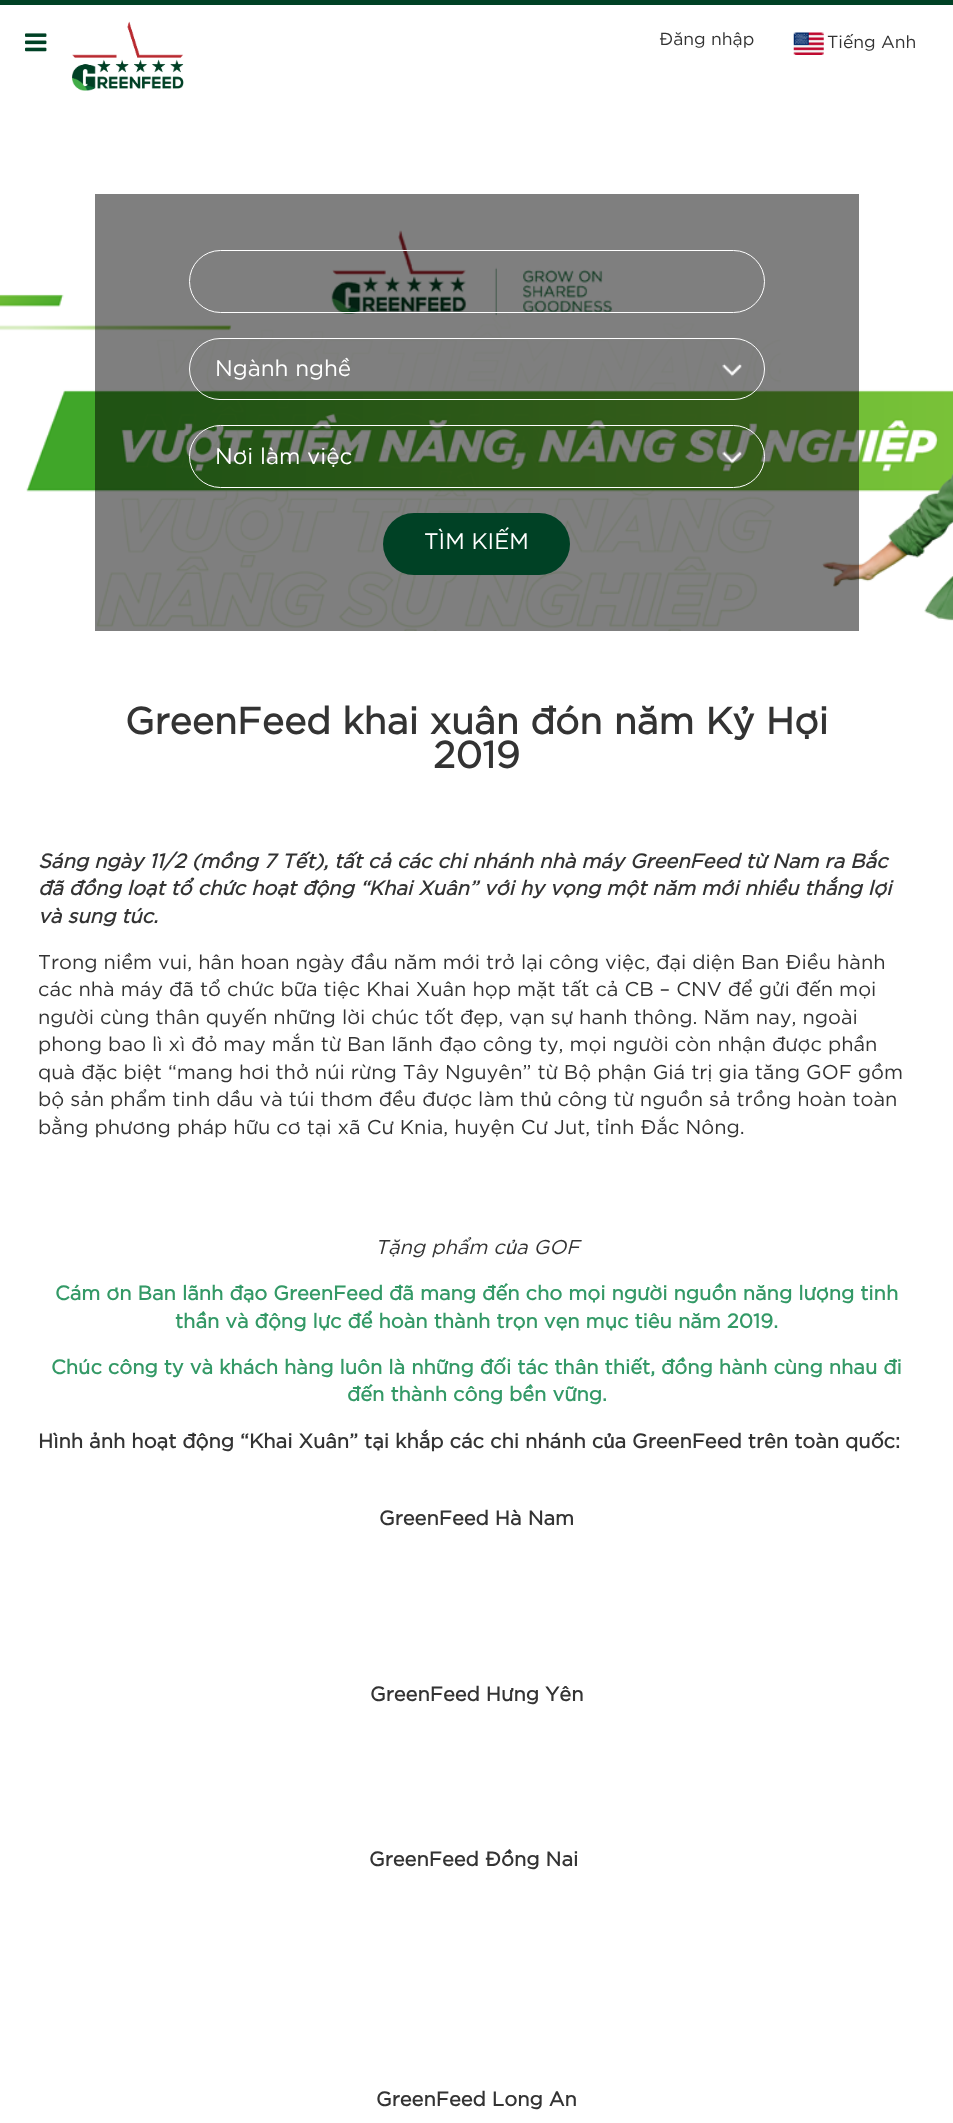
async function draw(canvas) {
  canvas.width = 953;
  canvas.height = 2123;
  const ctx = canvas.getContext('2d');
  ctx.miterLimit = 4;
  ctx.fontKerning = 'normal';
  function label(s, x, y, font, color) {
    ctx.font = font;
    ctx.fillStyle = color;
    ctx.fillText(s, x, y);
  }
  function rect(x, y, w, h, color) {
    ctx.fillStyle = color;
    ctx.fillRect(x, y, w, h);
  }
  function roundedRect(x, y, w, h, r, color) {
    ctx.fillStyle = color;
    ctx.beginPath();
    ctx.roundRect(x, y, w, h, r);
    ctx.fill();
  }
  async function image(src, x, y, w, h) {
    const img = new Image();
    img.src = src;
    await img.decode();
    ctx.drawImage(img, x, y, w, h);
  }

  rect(0, 0, 953, 2123, '#fff');
  rect(0, 0, 953, 5, '#004125');
  await image('assets/img1.png', 25, 33, 22, 19);
  await image('assets/img2.png', 72, 21, 112, 70);
  label('Đăng nhập', 659, 45, '17.5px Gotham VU', '#333');
  await image('assets/img3.png', 793, 32, 31, 23);
  label('Tiếng Anh', 827, 48, '17.5px Gotham VU', '#333');
  await image('assets/img4.png', 0, 230, 953, 401);
  rect(95, 194, 764, 437, '#00000080');
  ctx.beginPath();
  ctx.roundRect(189.5, 250.5, 575, 62, 31);
  ctx.strokeStyle = '#fff';
  ctx.stroke();
  ctx.beginPath();
  ctx.roundRect(189.5, 338.5, 575, 61, 30.5);
  ctx.stroke();
  label('Ngành nghề', 215, 376, '22.5px Gotham VU', '#fff');
  await image('assets/img5.png', 722, 363, 20, 14);
  ctx.beginPath();
  ctx.roundRect(189.5, 425.5, 575, 62, 31);
  ctx.stroke();
  label('Nơi làm việc', 215, 464, '22.5px Gotham VU', '#fff');
  await image('assets/img6.png', 722, 451, 20, 13);
  roundedRect(383, 513, 187, 62, 31, '#004125');
  label('TÌM KIẾM', 424, 549, '22.5px Gotham VU', '#fff');
  label('GreenFeed khai xuân đón năm Kỷ Hợi', 125, 734, 'bold 37.5px Gotham VU', '#333');
  label('2019', 433, 768, 'bold 37.5px Gotham VU', '#333');
  label('Sáng ngày 11/2 (mồng 7 Tết), tất cả các chi nhánh nhà máy GreenFeed từ Nam ra Bắc', 38, 868, 'italic bold 20px Gotham VU', '#333');
  label('đã đồng loạt tổ chức hoạt động “Khai Xuân” với hy vọng một năm mới nhiều thắng lợi', 38, 895, 'italic bold 20px Gotham VU', '#333');
  label('và sung túc.', 38, 923, 'italic bold 20px Gotham VU', '#333');
  label('Trong niềm vui, hân hoan ngày đầu năm mới trở lại công việc, đại diện Ban Điều hành', 38, 969, '20px Gotham VU', '#333');
  label('các nhà máy đã tổ chức bữa tiệc Khai Xuân họp mặt tất cả CB – CNV để gửi đến mọi', 38, 996, '20px Gotham VU', '#333');
  label('người cùng thân quyến những lời chúc tốt đẹp, vạn sự hanh thông. Năm nay, ngoài', 38, 1024, '20px Gotham VU', '#333');
  label('phong bao lì xì đỏ may mắn từ Ban lãnh đạo công ty, mọi người còn nhận được phần', 38, 1051, '20px Gotham VU', '#333');
  label('quà đặc biệt “mang hơi thở núi rừng Tây Nguyên” từ Bộ phận Giá trị gia tăng GOF gồm', 38, 1079, '20px Gotham VU', '#333');
  label('bộ sản phẩm tinh dầu và túi thơm đều được làm thủ công từ nguồn sả trồng hoàn toàn', 38, 1106, '20px Gotham VU', '#333');
  label('bằng phương pháp hữu cơ tại xã Cư Knia, huyện Cư Jut, tỉnh Đắc Nông.', 38, 1134, '20px Gotham VU', '#333');
  label('Tặng phẩm của GOF', 375, 1254, 'italic 20px Gotham VU', '#333');
  label('Cám ơn Ban lãnh đạo GreenFeed đã mang đến cho mọi người nguồn năng lượng tinh', 55, 1300, 'bold 20px Gotham VU', '#396');
  label('thần và động lực để hoàn thành trọn vẹn mục tiêu năm 2019.', 175, 1328, 'bold 20px Gotham VU', '#396');
  label('Chúc công ty và khách hàng luôn là những đối tác thân thiết, đồng hành cùng nhau đi', 51, 1374, 'bold 20px Gotham VU', '#396');
  label('đến thành công bền vững.', 347, 1401, 'bold 20px Gotham VU', '#396');
  label('Hình ảnh hoạt động “Khai Xuân” tại khắp các chi nhánh của GreenFeed trên toàn quốc:', 38, 1448, 'bold 20px Gotham VU', '#333');
  label('GreenFeed Hà Nam', 379, 1525, 'bold 20px Gotham VU', '#333');
  label('GreenFeed Hưng Yên', 370, 1701, 'bold 20px Gotham VU', '#333');
  label('GreenFeed Đồng Nai', 369, 1866, 'bold 20px Gotham VU', '#333');
  label('GreenFeed Long An', 376, 2106, 'bold 20px Gotham VU', '#333');
}

draw(document.querySelector('canvas'));
